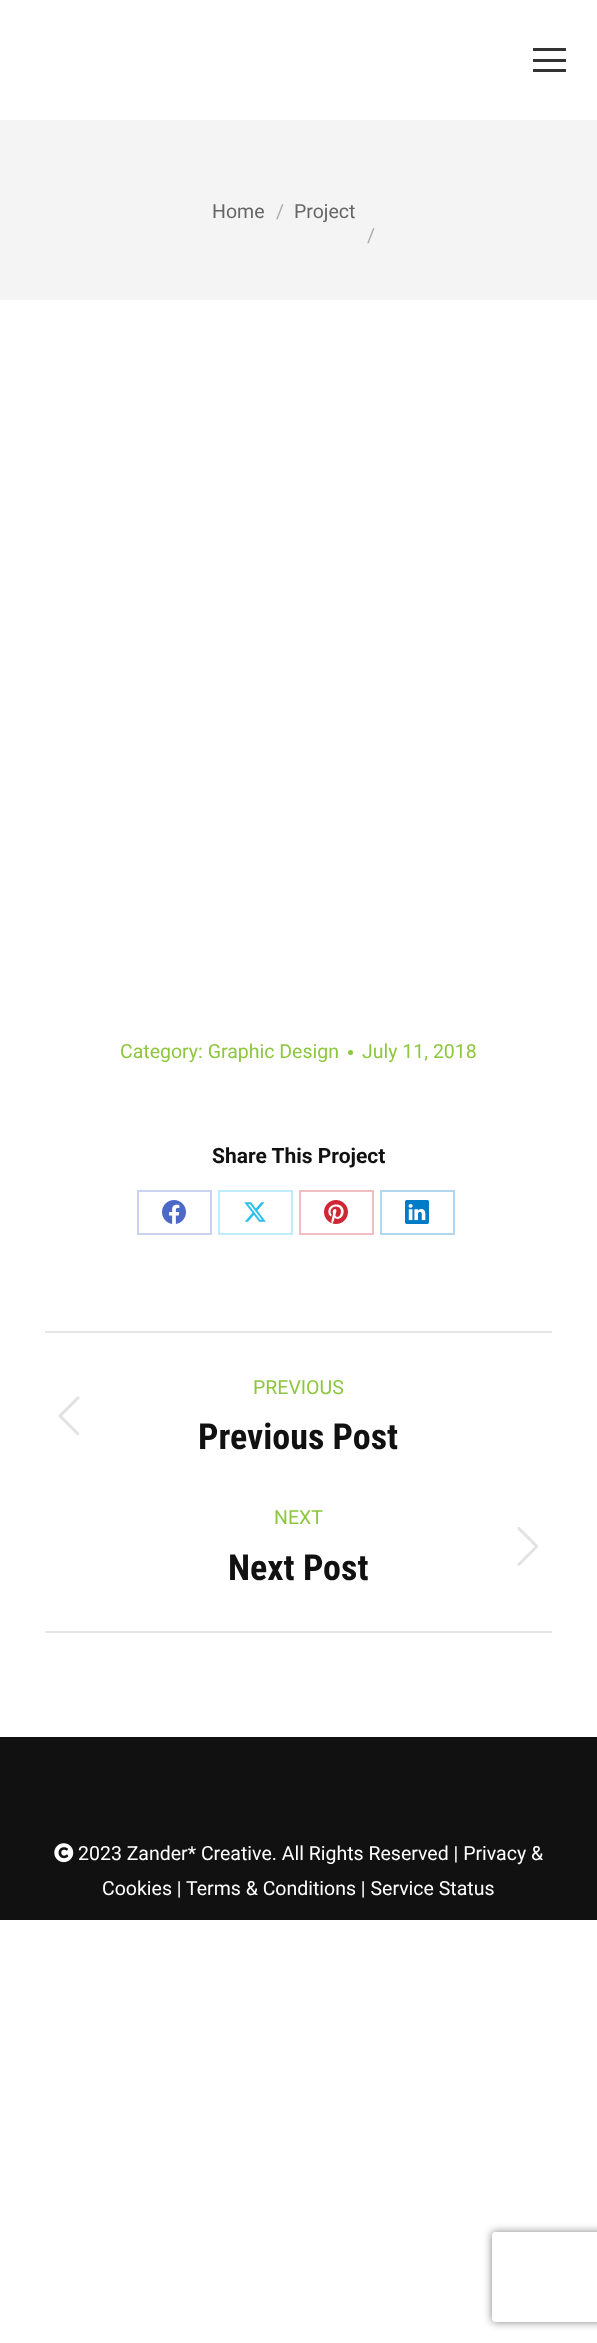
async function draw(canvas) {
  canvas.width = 597;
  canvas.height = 2343;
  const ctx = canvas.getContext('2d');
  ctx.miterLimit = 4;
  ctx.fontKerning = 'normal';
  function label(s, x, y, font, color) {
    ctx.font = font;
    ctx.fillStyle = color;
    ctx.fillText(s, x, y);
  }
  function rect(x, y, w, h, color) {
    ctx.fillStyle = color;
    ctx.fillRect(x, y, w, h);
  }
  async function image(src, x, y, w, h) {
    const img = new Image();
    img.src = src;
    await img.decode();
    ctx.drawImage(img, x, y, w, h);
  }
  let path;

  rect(0, 0, 597, 2343, '#fff');
  rect(533, 48, 33, 3, '#333');
  rect(533, 59, 33, 3, '#333');
  rect(533, 69, 33, 3, '#333');
  rect(0, 120, 597, 180, '#f4f4f5');
  label('Home', 212, 218, '19.5px Roboto', '#666');
  label('/', 276, 218, '19.5px Roboto', '#adadae');
  label('Project', 294, 218, '19.5px Roboto', '#666');
  label('/', 367, 242, '19.5px Roboto', '#adadae');
  label('Category: Graphic Design', 120, 1058, '19.5px Roboto', '#8dc63f');
  ctx.beginPath();
  ctx.arc(350.5, 1052.5, 2.5, 0, 2 * Math.PI);
  ctx.fill();
  label('July 11, 2018', 362, 1058, '19.5px Roboto', '#8dc63f');
  label('Share This Project', 212, 1163, 'bold 21px Roboto', '#111');
  ctx.strokeStyle = '#c9d2ee';
  ctx.lineWidth = 2;
  ctx.strokeRect(138, 1191, 73, 43);
  await image('assets/img1.png', 162, 1200, 24, 24);
  ctx.strokeStyle = '#bfecf9';
  ctx.strokeRect(219, 1191, 73, 43);
  await image('assets/img2.png', 244, 1202, 22, 20);
  ctx.strokeStyle = '#f1bfc2';
  ctx.strokeRect(300, 1191, 73, 43);
  await image('assets/img3.png', 324, 1200, 24, 24);
  ctx.strokeStyle = '#b3d7ee';
  ctx.strokeRect(381, 1191, 73, 43);
  await image('assets/img4.png', 405, 1200, 24, 24);
  rect(45, 1331, 507, 2, '#e6e6e6');
  rect(45, 1631, 507, 2, '#e6e6e6');
  label('PREVIOUS', 253, 1394, '19.5px Roboto', '#8dc63f');
  await image('assets/img5.png', 58, 1396, 22, 40);
  label('Previous Post', 198, 1449, 'bold 36px Roboto Condensed', '#111');
  label('NEXT', 274, 1524, '19.5px Roboto', '#8dc63f');
  label('Next Post', 228, 1580, 'bold 36px Roboto Condensed', '#111');
  await image('assets/img6.png', 517, 1527, 22, 39);
  rect(0, 1737, 597, 183, '#111');
  await image('assets/img7.png', 54, 1843, 20, 20);
  label('2023 Zander* Creative. All Rights Reserved | Privacy &', 78, 1860, '19.5px Roboto', '#fff');
  label('Cookies | Terms & Conditions | Service Status', 102, 1895, '19.5px Roboto', '#fff');
  ctx.save();
  path = new Path2D('M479 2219H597V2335H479ZM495 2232H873C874.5 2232 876 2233.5 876 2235V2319C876 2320.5 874.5 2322 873 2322H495C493.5 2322 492 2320.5 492 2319V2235C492 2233.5 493.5 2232 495 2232Z');
  ctx.clip(path, 'evenodd');
  ctx.fillStyle = '#808080';
  ctx.filter = 'blur(4px)';
  ctx.beginPath();
  ctx.roundRect(492, 2232, 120, 90, 3);
  ctx.fill();
  ctx.filter = 'none';
  ctx.restore();
}

draw(document.querySelector('canvas'));
